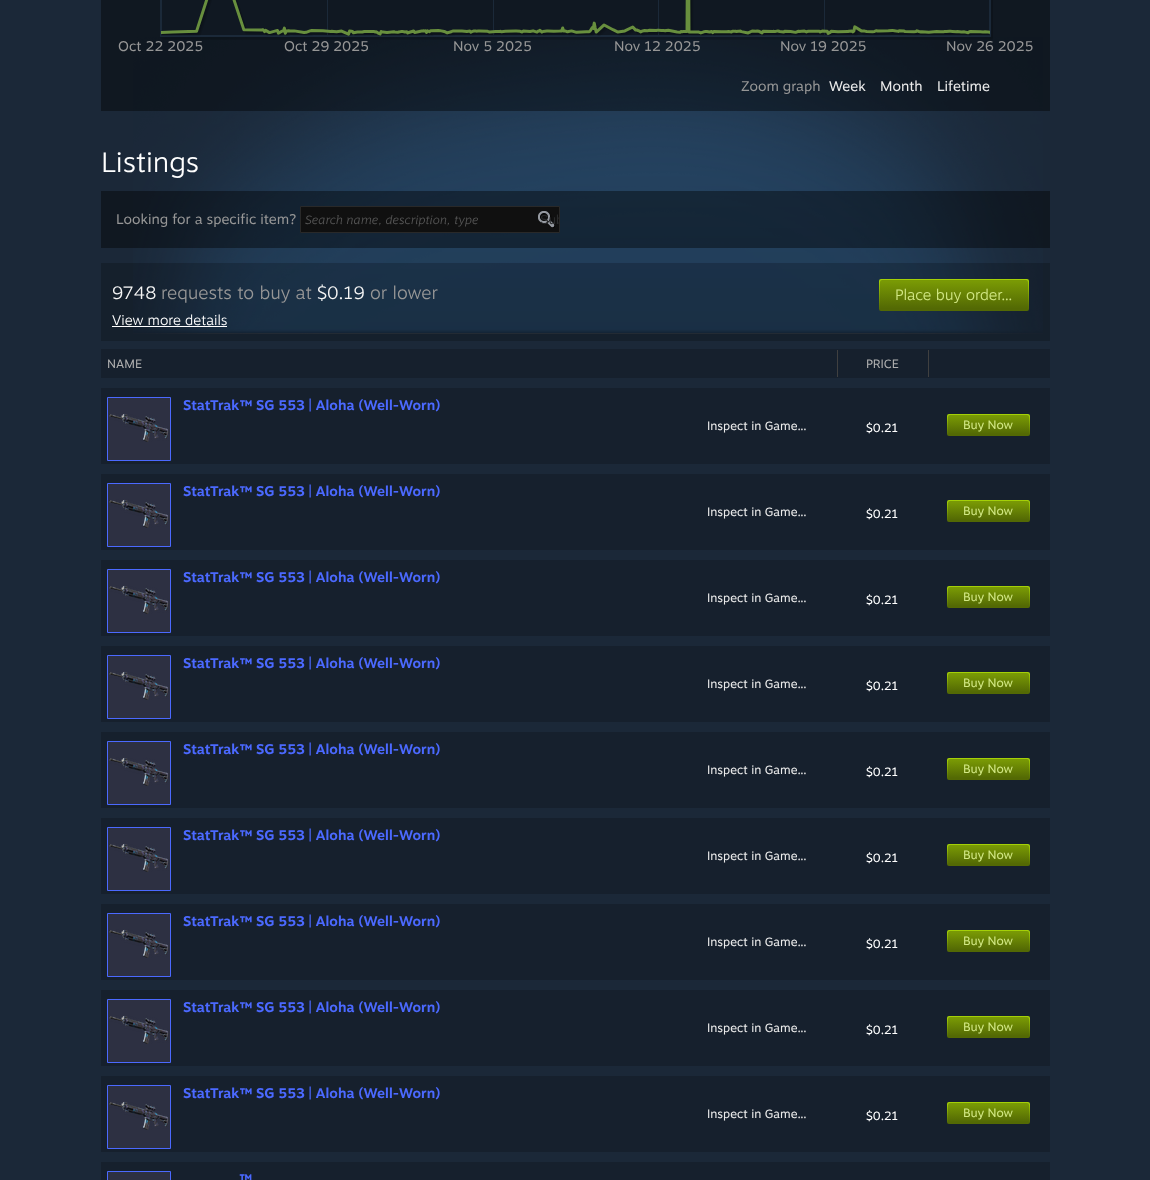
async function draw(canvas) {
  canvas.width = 1150;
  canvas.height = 1180;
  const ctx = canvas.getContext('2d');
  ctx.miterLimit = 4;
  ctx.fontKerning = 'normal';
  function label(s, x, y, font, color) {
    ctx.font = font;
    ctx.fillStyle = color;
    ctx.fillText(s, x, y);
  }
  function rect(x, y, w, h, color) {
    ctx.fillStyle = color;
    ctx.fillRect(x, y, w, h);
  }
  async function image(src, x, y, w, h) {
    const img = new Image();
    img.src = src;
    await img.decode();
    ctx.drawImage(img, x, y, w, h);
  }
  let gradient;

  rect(0, 0, 1150, 1180, '#1b2838');
  await image('assets/img3.png', 133, 37, 910, 297);
  rect(101, 0, 949, 111, '#00000066');
  await image('assets/img1.png', 160, 0, 833, 40);
  await image('assets/img2.png', 161, 0, 829, 36);
  label('Oct 22 2025', 118, 51, '14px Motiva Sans', '#969696');
  label('Oct 29 2025', 284, 51, '14px Motiva Sans', '#969696');
  label('Nov 5 2025', 453, 51, '14px Motiva Sans', '#969696');
  label('Nov 12 2025', 614, 51, '14px Motiva Sans', '#969696');
  label('Nov 19 2025', 780, 51, '14px Motiva Sans', '#969696');
  label('Nov 26 2025', 946, 51, '14px Motiva Sans', '#969696');
  label('Zoom graph', 741, 91, '14px Motiva Sans', '#969696');
  label('Week', 829, 91, '14px Motiva Sans', '#ebebeb');
  label('Month', 880, 91, '14px Motiva Sans', '#ebebeb');
  label('Lifetime', 937, 91, '14px Motiva Sans', '#ebebeb');
  label('Listings', 101, 172, '300 28px Motiva Sans', '#fff');
  rect(101, 191, 949, 57, '#00000066');
  label('Looking for a specific item?', 116, 224, '14px Motiva Sans', '#969696');
  ctx.fillStyle = '#101010';
  ctx.beginPath();
  ctx.rect(300.5, 206.5, 259, 26);
  ctx.fill();
  ctx.strokeStyle = '#292929';
  ctx.stroke();
  label('Search name, description, type', 305, 224, 'italic 300 12px Motiva Sans', '#555');
  await image('assets/img4.png', 538, 211, 17, 17);
  ctx.save();
  ctx.beginPath();
  ctx.rect(534, 207, 26, 25);
  ctx.clip();
  label('Sub', 540, 224, '13px Liberation Sans', '#2a2b2c');
  ctx.restore();
  rect(101, 263, 949, 78, '#00000033');
  label('9748', 112, 299, '300 18px Motiva Sans', '#f5f5f5');
  label('requests to buy at', 161, 299, '300 18px Motiva Sans', '#969696');
  label('$0.19', 317, 299, '300 18px Motiva Sans', '#f5f5f5');
  label('or lower', 370, 299, '300 18px Motiva Sans', '#969696');
  gradient = ctx.createLinearGradient(954, 279, 954, 311);
  gradient.addColorStop(0.05, '#a4d007');
  gradient.addColorStop(0.95, '#536904');
  ctx.fillStyle = gradient;
  ctx.beginPath();
  ctx.roundRect(879, 279, 150, 32, 2);
  ctx.fill();
  gradient = ctx.createLinearGradient(954, 280, 954, 310);
  gradient.addColorStop(0.05, '#799905');
  gradient.addColorStop(0.95, '#536904');
  ctx.fillStyle = gradient;
  ctx.beginPath();
  ctx.roundRect(880, 280, 148, 30, 2);
  ctx.fill();
  label('Place buy order...', 895, 300, '300 15px Motiva Sans', '#d2e885');
  label('View more details', 112, 325, '300 14px Motiva Sans', '#fff');
  rect(112, 326, 115, 1, '#fff');
  rect(101, 349, 949, 29, '#16202d');
  label('NAME', 107, 368, '12px Motiva Sans', '#afafaf');
  rect(837, 350, 1, 27, '#404040');
  label('PRICE', 866, 368, '12px Motiva Sans', '#afafaf');
  rect(928, 350, 1, 27, '#404040');
  rect(101, 388, 949, 76, '#16202d');
  ctx.fillStyle = '#2d3042';
  ctx.beginPath();
  ctx.rect(107.5, 397.5, 63, 63);
  ctx.fill();
  ctx.strokeStyle = '#4b69ff';
  ctx.stroke();
  await image('assets/img5.png', 109, 413, 60, 29);
  label('StatTrak™ SG 553 | Aloha (Well-Worn)', 183, 410, 'bold 14px Motiva Sans', '#4b69ff');
  label('Inspect in Game...', 707, 430, '12px Motiva Sans', '#ebebeb');
  label('$0.21', 866, 432, '12px Motiva Sans', '#fff');
  gradient = ctx.createLinearGradient(989, 414, 989, 436);
  gradient.addColorStop(0.05, '#a4d007');
  gradient.addColorStop(0.95, '#536904');
  ctx.fillStyle = gradient;
  ctx.beginPath();
  ctx.roundRect(947, 414, 83, 22, 2);
  ctx.fill();
  gradient = ctx.createLinearGradient(989, 415, 989, 435);
  gradient.addColorStop(0.05, '#799905');
  gradient.addColorStop(0.95, '#536904');
  ctx.fillStyle = gradient;
  ctx.beginPath();
  ctx.roundRect(948, 415, 81, 20, 2);
  ctx.fill();
  label('Buy Now', 963, 429, '12px Motiva Sans', '#d2e885');
  rect(101, 474, 949, 76, '#16202d');
  ctx.fillStyle = '#2d3042';
  ctx.beginPath();
  ctx.rect(107.5, 483.5, 63, 63);
  ctx.fill();
  ctx.stroke();
  await image('assets/img5.png', 109, 499, 60, 29);
  label('StatTrak™ SG 553 | Aloha (Well-Worn)', 183, 496, 'bold 14px Motiva Sans', '#4b69ff');
  label('Inspect in Game...', 707, 516, '12px Motiva Sans', '#ebebeb');
  label('$0.21', 866, 518, '12px Motiva Sans', '#fff');
  gradient = ctx.createLinearGradient(989, 500, 989, 522);
  gradient.addColorStop(0.05, '#a4d007');
  gradient.addColorStop(0.95, '#536904');
  ctx.fillStyle = gradient;
  ctx.beginPath();
  ctx.roundRect(947, 500, 83, 22, 2);
  ctx.fill();
  gradient = ctx.createLinearGradient(989, 501, 989, 521);
  gradient.addColorStop(0.05, '#799905');
  gradient.addColorStop(0.95, '#536904');
  ctx.fillStyle = gradient;
  ctx.beginPath();
  ctx.roundRect(948, 501, 81, 20, 2);
  ctx.fill();
  label('Buy Now', 963, 515, '12px Motiva Sans', '#d2e885');
  rect(101, 560, 949, 76, '#16202d');
  ctx.fillStyle = '#2d3042';
  ctx.beginPath();
  ctx.rect(107.5, 569.5, 63, 63);
  ctx.fill();
  ctx.stroke();
  await image('assets/img5.png', 109, 585, 60, 29);
  label('StatTrak™ SG 553 | Aloha (Well-Worn)', 183, 582, 'bold 14px Motiva Sans', '#4b69ff');
  label('Inspect in Game...', 707, 602, '12px Motiva Sans', '#ebebeb');
  label('$0.21', 866, 604, '12px Motiva Sans', '#fff');
  gradient = ctx.createLinearGradient(989, 586, 989, 608);
  gradient.addColorStop(0.05, '#a4d007');
  gradient.addColorStop(0.95, '#536904');
  ctx.fillStyle = gradient;
  ctx.beginPath();
  ctx.roundRect(947, 586, 83, 22, 2);
  ctx.fill();
  gradient = ctx.createLinearGradient(989, 587, 989, 607);
  gradient.addColorStop(0.05, '#799905');
  gradient.addColorStop(0.95, '#536904');
  ctx.fillStyle = gradient;
  ctx.beginPath();
  ctx.roundRect(948, 587, 81, 20, 2);
  ctx.fill();
  label('Buy Now', 963, 601, '12px Motiva Sans', '#d2e885');
  rect(101, 646, 949, 76, '#16202d');
  ctx.fillStyle = '#2d3042';
  ctx.beginPath();
  ctx.rect(107.5, 655.5, 63, 63);
  ctx.fill();
  ctx.stroke();
  await image('assets/img5.png', 109, 671, 60, 29);
  label('StatTrak™ SG 553 | Aloha (Well-Worn)', 183, 668, 'bold 14px Motiva Sans', '#4b69ff');
  label('Inspect in Game...', 707, 688, '12px Motiva Sans', '#ebebeb');
  label('$0.21', 866, 690, '12px Motiva Sans', '#fff');
  gradient = ctx.createLinearGradient(989, 672, 989, 694);
  gradient.addColorStop(0.05, '#a4d007');
  gradient.addColorStop(0.95, '#536904');
  ctx.fillStyle = gradient;
  ctx.beginPath();
  ctx.roundRect(947, 672, 83, 22, 2);
  ctx.fill();
  gradient = ctx.createLinearGradient(989, 673, 989, 693);
  gradient.addColorStop(0.05, '#799905');
  gradient.addColorStop(0.95, '#536904');
  ctx.fillStyle = gradient;
  ctx.beginPath();
  ctx.roundRect(948, 673, 81, 20, 2);
  ctx.fill();
  label('Buy Now', 963, 687, '12px Motiva Sans', '#d2e885');
  rect(101, 732, 949, 76, '#16202d');
  ctx.fillStyle = '#2d3042';
  ctx.beginPath();
  ctx.rect(107.5, 741.5, 63, 63);
  ctx.fill();
  ctx.stroke();
  await image('assets/img5.png', 109, 757, 60, 29);
  label('StatTrak™ SG 553 | Aloha (Well-Worn)', 183, 754, 'bold 14px Motiva Sans', '#4b69ff');
  label('Inspect in Game...', 707, 774, '12px Motiva Sans', '#ebebeb');
  label('$0.21', 866, 776, '12px Motiva Sans', '#fff');
  gradient = ctx.createLinearGradient(989, 758, 989, 780);
  gradient.addColorStop(0.05, '#a4d007');
  gradient.addColorStop(0.95, '#536904');
  ctx.fillStyle = gradient;
  ctx.beginPath();
  ctx.roundRect(947, 758, 83, 22, 2);
  ctx.fill();
  gradient = ctx.createLinearGradient(989, 759, 989, 779);
  gradient.addColorStop(0.05, '#799905');
  gradient.addColorStop(0.95, '#536904');
  ctx.fillStyle = gradient;
  ctx.beginPath();
  ctx.roundRect(948, 759, 81, 20, 2);
  ctx.fill();
  label('Buy Now', 963, 773, '12px Motiva Sans', '#d2e885');
  rect(101, 818, 949, 76, '#16202d');
  ctx.fillStyle = '#2d3042';
  ctx.beginPath();
  ctx.rect(107.5, 827.5, 63, 63);
  ctx.fill();
  ctx.stroke();
  await image('assets/img5.png', 109, 843, 60, 29);
  label('StatTrak™ SG 553 | Aloha (Well-Worn)', 183, 840, 'bold 14px Motiva Sans', '#4b69ff');
  label('Inspect in Game...', 707, 860, '12px Motiva Sans', '#ebebeb');
  label('$0.21', 866, 862, '12px Motiva Sans', '#fff');
  gradient = ctx.createLinearGradient(989, 844, 989, 866);
  gradient.addColorStop(0.05, '#a4d007');
  gradient.addColorStop(0.95, '#536904');
  ctx.fillStyle = gradient;
  ctx.beginPath();
  ctx.roundRect(947, 844, 83, 22, 2);
  ctx.fill();
  gradient = ctx.createLinearGradient(989, 845, 989, 865);
  gradient.addColorStop(0.05, '#799905');
  gradient.addColorStop(0.95, '#536904');
  ctx.fillStyle = gradient;
  ctx.beginPath();
  ctx.roundRect(948, 845, 81, 20, 2);
  ctx.fill();
  label('Buy Now', 963, 859, '12px Motiva Sans', '#d2e885');
  rect(101, 904, 949, 76, '#16202d');
  ctx.fillStyle = '#2d3042';
  ctx.beginPath();
  ctx.rect(107.5, 913.5, 63, 63);
  ctx.fill();
  ctx.stroke();
  await image('assets/img5.png', 109, 929, 60, 29);
  label('StatTrak™ SG 553 | Aloha (Well-Worn)', 183, 926, 'bold 14px Motiva Sans', '#4b69ff');
  label('Inspect in Game...', 707, 946, '12px Motiva Sans', '#ebebeb');
  label('$0.21', 866, 948, '12px Motiva Sans', '#fff');
  gradient = ctx.createLinearGradient(989, 930, 989, 952);
  gradient.addColorStop(0.05, '#a4d007');
  gradient.addColorStop(0.95, '#536904');
  ctx.fillStyle = gradient;
  ctx.beginPath();
  ctx.roundRect(947, 930, 83, 22, 2);
  ctx.fill();
  gradient = ctx.createLinearGradient(989, 931, 989, 951);
  gradient.addColorStop(0.05, '#799905');
  gradient.addColorStop(0.95, '#536904');
  ctx.fillStyle = gradient;
  ctx.beginPath();
  ctx.roundRect(948, 931, 81, 20, 2);
  ctx.fill();
  label('Buy Now', 963, 945, '12px Motiva Sans', '#d2e885');
  rect(101, 990, 949, 76, '#16202d');
  ctx.fillStyle = '#2d3042';
  ctx.beginPath();
  ctx.rect(107.5, 999.5, 63, 63);
  ctx.fill();
  ctx.stroke();
  await image('assets/img5.png', 109, 1015, 60, 29);
  label('StatTrak™ SG 553 | Aloha (Well-Worn)', 183, 1012, 'bold 14px Motiva Sans', '#4b69ff');
  label('Inspect in Game...', 707, 1032, '12px Motiva Sans', '#ebebeb');
  label('$0.21', 866, 1034, '12px Motiva Sans', '#fff');
  gradient = ctx.createLinearGradient(989, 1016, 989, 1038);
  gradient.addColorStop(0.05, '#a4d007');
  gradient.addColorStop(0.95, '#536904');
  ctx.fillStyle = gradient;
  ctx.beginPath();
  ctx.roundRect(947, 1016, 83, 22, 2);
  ctx.fill();
  gradient = ctx.createLinearGradient(989, 1017, 989, 1037);
  gradient.addColorStop(0.05, '#799905');
  gradient.addColorStop(0.95, '#536904');
  ctx.fillStyle = gradient;
  ctx.beginPath();
  ctx.roundRect(948, 1017, 81, 20, 2);
  ctx.fill();
  label('Buy Now', 963, 1031, '12px Motiva Sans', '#d2e885');
  rect(101, 1076, 949, 76, '#16202d');
  ctx.fillStyle = '#2d3042';
  ctx.beginPath();
  ctx.rect(107.5, 1085.5, 63, 63);
  ctx.fill();
  ctx.stroke();
  await image('assets/img5.png', 109, 1101, 60, 29);
  label('StatTrak™ SG 553 | Aloha (Well-Worn)', 183, 1098, 'bold 14px Motiva Sans', '#4b69ff');
  label('Inspect in Game...', 707, 1118, '12px Motiva Sans', '#ebebeb');
  label('$0.21', 866, 1120, '12px Motiva Sans', '#fff');
  gradient = ctx.createLinearGradient(989, 1102, 989, 1124);
  gradient.addColorStop(0.05, '#a4d007');
  gradient.addColorStop(0.95, '#536904');
  ctx.fillStyle = gradient;
  ctx.beginPath();
  ctx.roundRect(947, 1102, 83, 22, 2);
  ctx.fill();
  gradient = ctx.createLinearGradient(989, 1103, 989, 1123);
  gradient.addColorStop(0.05, '#799905');
  gradient.addColorStop(0.95, '#536904');
  ctx.fillStyle = gradient;
  ctx.beginPath();
  ctx.roundRect(948, 1103, 81, 20, 2);
  ctx.fill();
  label('Buy Now', 963, 1117, '12px Motiva Sans', '#d2e885');
  rect(101, 1162, 949, 18, '#16202d');
  ctx.fillStyle = '#2d3042';
  ctx.beginPath();
  ctx.rect(107.5, 1171.5, 63, 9);
  ctx.fill();
  ctx.stroke();
  label('™', 239, 1184, 'bold 14px Motiva Sans', '#4b69ff');
}

draw(document.querySelector('canvas'));
